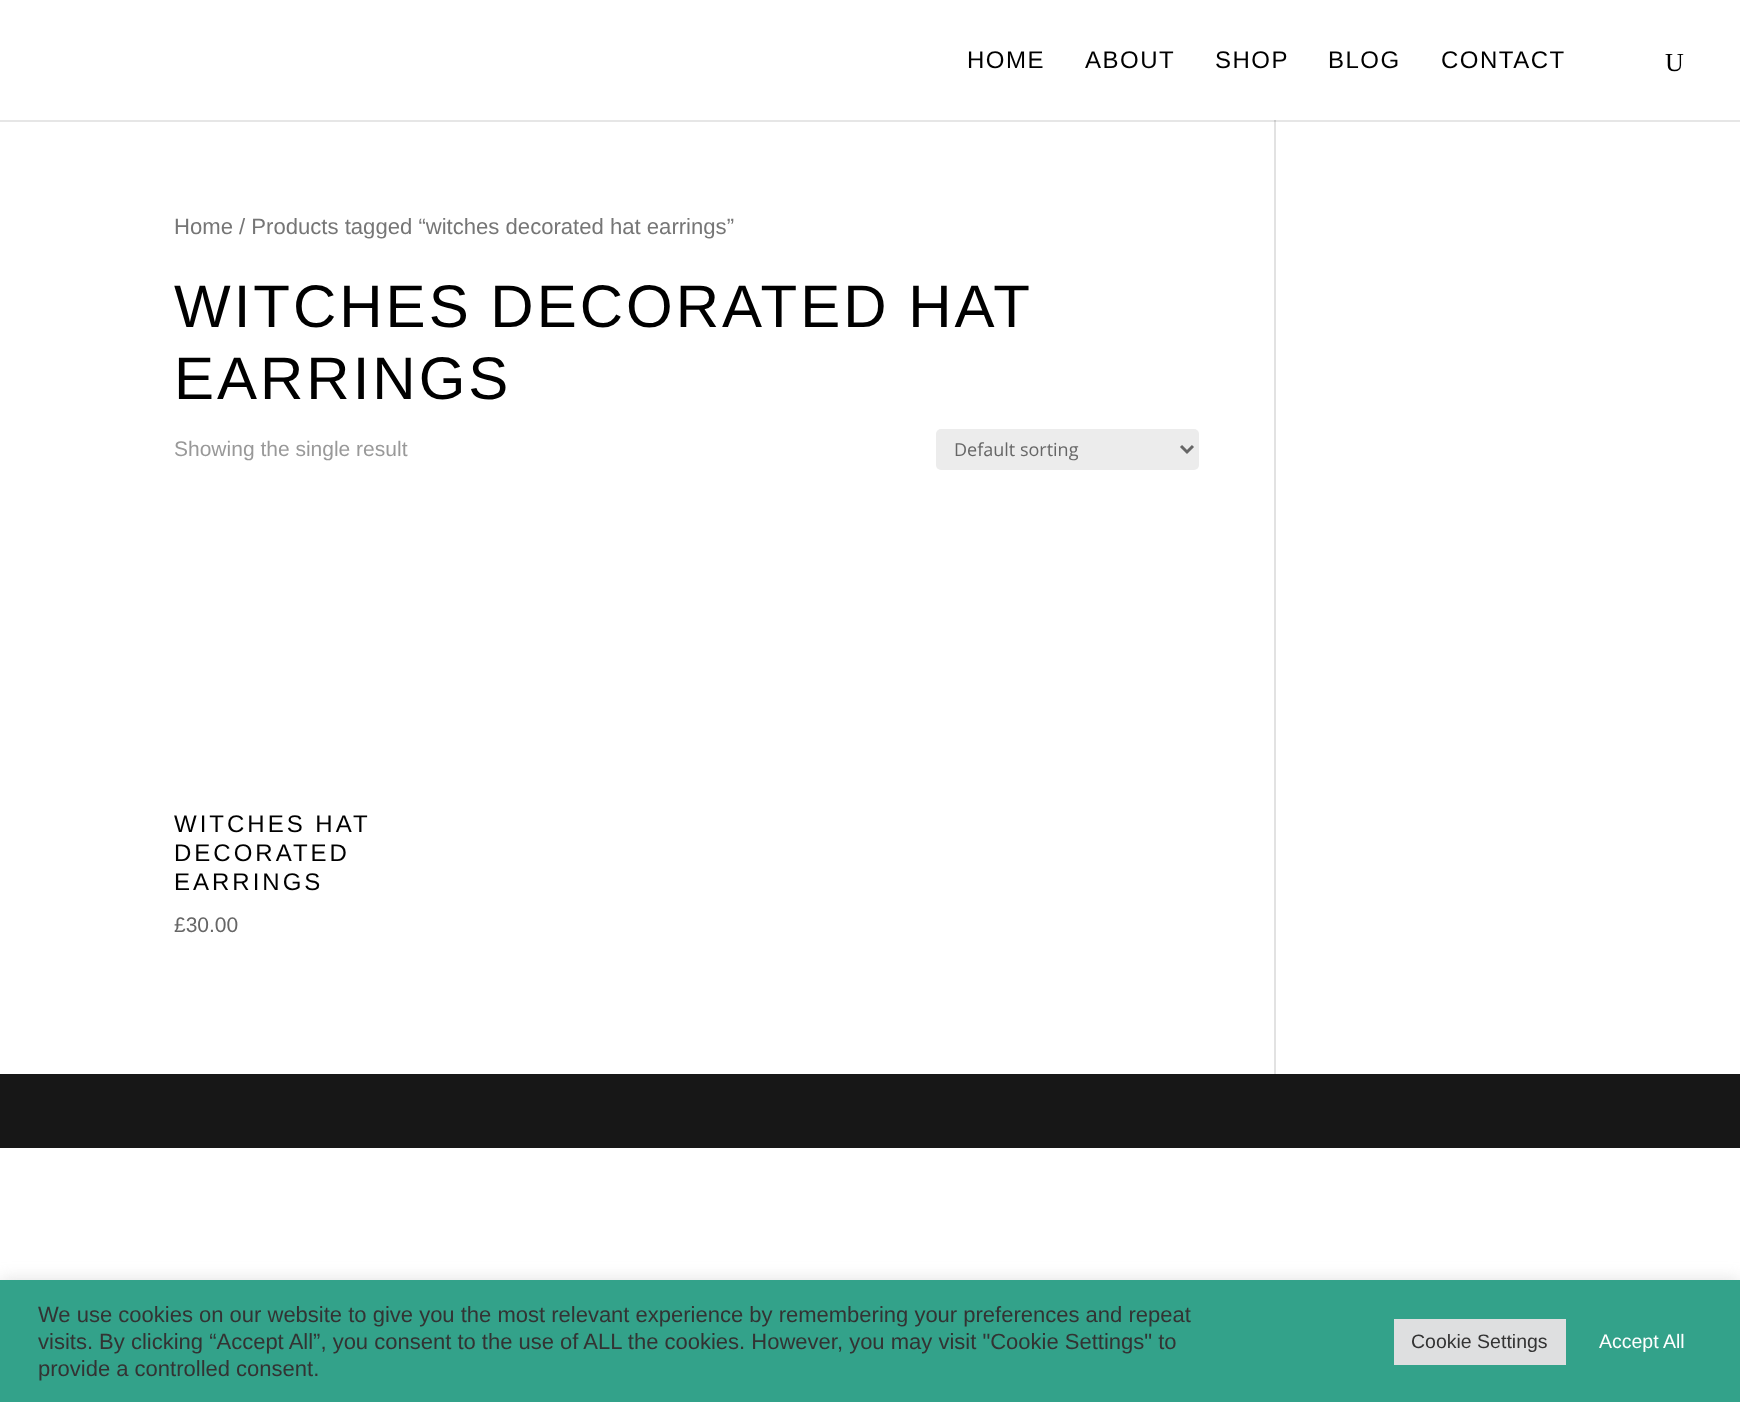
async function draw(canvas) {
  canvas.width = 1740;
  canvas.height = 1402;
  const ctx = canvas.getContext('2d');
  ctx.miterLimit = 4;
  ctx.fontKerning = 'normal';
  function label(s, x, y, font, color) {
    ctx.font = font;
    ctx.fillStyle = color;
    ctx.fillText(s, x, y);
  }
  function rect(x, y, w, h, color) {
    ctx.fillStyle = color;
    ctx.fillRect(x, y, w, h);
  }
  function roundedRect(x, y, w, h, r, color) {
    ctx.fillStyle = color;
    ctx.beginPath();
    ctx.roundRect(x, y, w, h, r);
    ctx.fill();
  }
  let path;

  rect(0, 0, 1740, 1402, '#fff');
  rect(0, 120, 1740, 2, '#e6e6e6');
  ctx.letterSpacing = '1.5px';
  label('HOME', 967, 68, '24px Liberation Sans', '#000');
  label('ABOUT', 1085, 68, '24px Liberation Sans', '#000');
  label('SHOP', 1215, 68, '24px Liberation Sans', '#000');
  label('BLOG', 1328, 68, '24px Liberation Sans', '#000');
  label('CONTACT', 1441, 68, '24px Liberation Sans', '#000');
  ctx.letterSpacing = '0px';
  label('U', 1665, 71, '26px Liberation Serif', '#000');
  label('Home / Products tagged “witches decorated hat earrings”', 174, 234, '22.1px Liberation Sans', '#767676');
  ctx.letterSpacing = '3px';
  ctx.wordSpacing = '-1px';
  label('WITCHES DECORATED HAT', 174, 327, '60px Liberation Sans', '#000');
  ctx.wordSpacing = '0px';
  label('EARRINGS', 174, 399, '60px Liberation Sans', '#000');
  ctx.letterSpacing = '0px';
  label('Showing the single result', 174, 456, '21px Liberation Sans', '#999');
  roundedRect(936, 429, 263, 41, 5, '#ececec');
  path = new Path2D('M1181 446L1187 452L1193 446');
  ctx.strokeStyle = '#666';
  ctx.lineWidth = 3;
  ctx.stroke(path);
  label('Default sorting', 954, 456, '18px Open Sans', '#666');
  ctx.letterSpacing = '3px';
  label('WITCHES HAT', 174, 832, '24px Liberation Sans', '#000');
  label('DECORATED', 174, 861, '24px Liberation Sans', '#000');
  label('EARRINGS', 174, 890, '24px Liberation Sans', '#000');
  ctx.letterSpacing = '0px';
  label('£30.00', 174, 932, '21px Liberation Sans', '#666');
  rect(1274, 120, 2, 954, '#e2e2e2');
  rect(1274, 120, 2, 2, '#cbcbcb');
  rect(0, 1074, 1740, 74, '#171717');
  ctx.fillStyle = '#acabab4d';
  ctx.filter = 'blur(7.5px)';
  ctx.beginPath();
  ctx.rect(0, 1278, 1740, 123);
  ctx.fill();
  ctx.filter = 'none';
  rect(0, 1280, 1740, 122, '#33a28a');
  label('We use cookies on our website to give you the most relevant experience by remembering your preferences and repeat', 38, 1322, '22px Liberation Sans', '#333');
  label('visits. By clicking “Accept All”, you consent to the use of ALL the cookies. However, you may visit "Cookie Settings" to', 38, 1349, '22px Liberation Sans', '#333');
  label('provide a controlled consent.', 38, 1376, '22px Liberation Sans', '#333');
  rect(1394, 1319, 172, 46, '#dedfe0');
  label('Cookie Settings', 1411, 1348, '19.5px Liberation Sans', '#333');
  label('Accept All', 1599, 1348, '19.5px Liberation Sans', '#fff');
}

draw(document.querySelector('canvas'));
